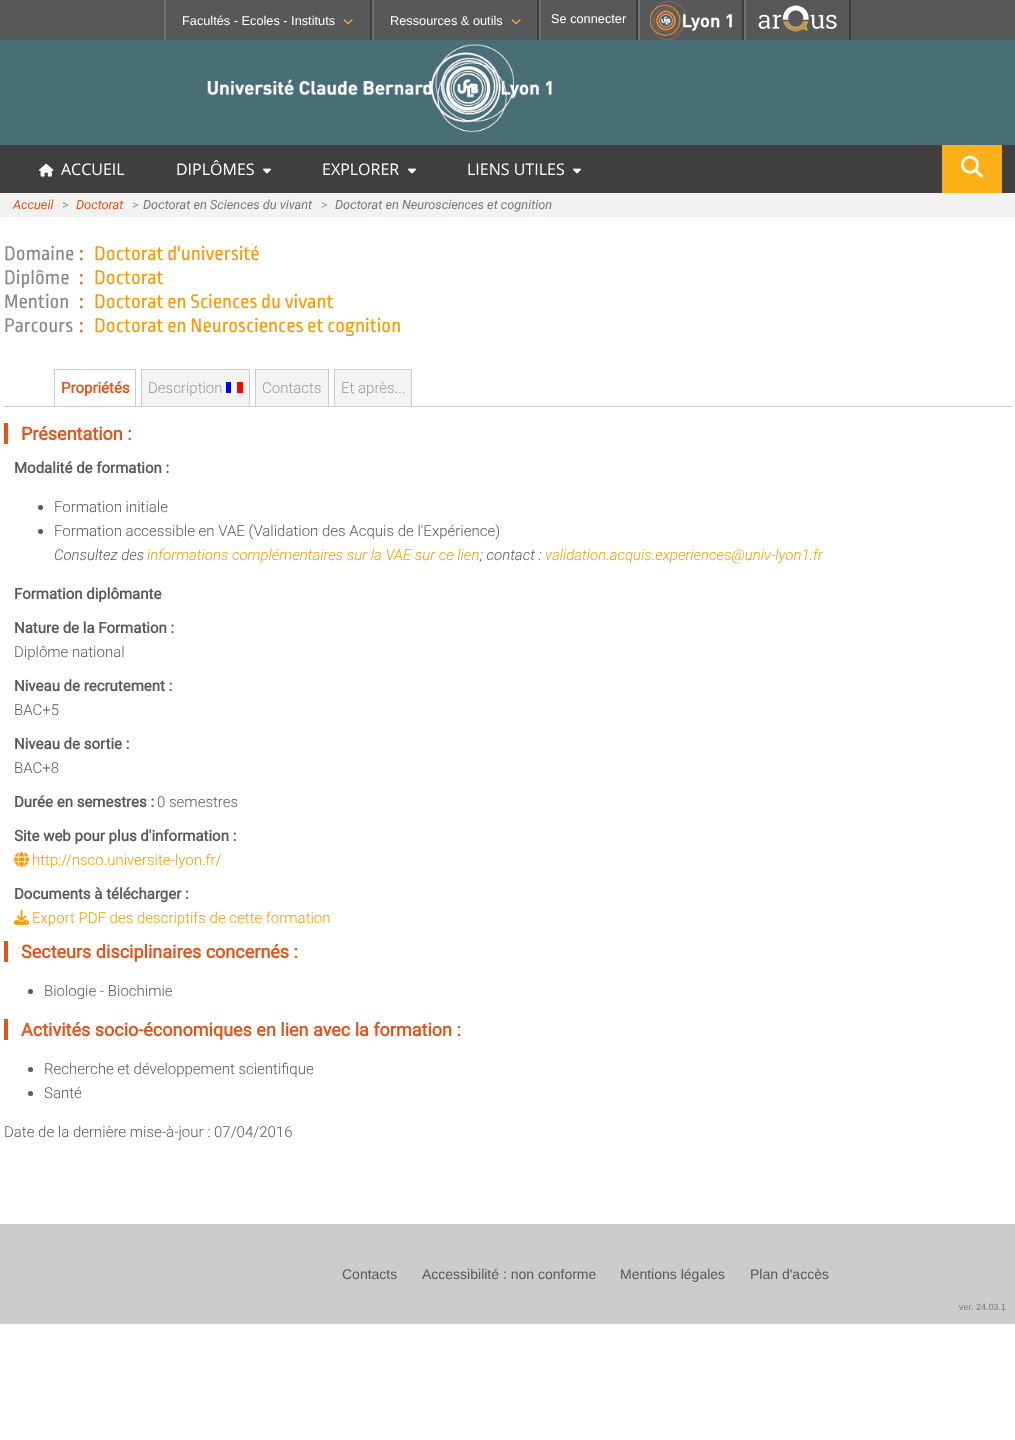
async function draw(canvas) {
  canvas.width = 1015;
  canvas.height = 1440;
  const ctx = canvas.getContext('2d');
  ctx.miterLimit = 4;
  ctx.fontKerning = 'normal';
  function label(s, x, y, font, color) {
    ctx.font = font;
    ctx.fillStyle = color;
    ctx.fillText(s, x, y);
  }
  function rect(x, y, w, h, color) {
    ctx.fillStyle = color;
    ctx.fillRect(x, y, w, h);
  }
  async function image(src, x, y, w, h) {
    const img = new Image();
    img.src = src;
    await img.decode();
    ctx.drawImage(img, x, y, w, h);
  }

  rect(0, 0, 1015, 1440, '#fff');
  rect(0, 0, 1015, 40, '#57585a');
  rect(370, 0, 2, 40, '#3e3d3b');
  rect(164, 0, 2, 40, '#727071');
  label('Facultés - Ecoles - Instituts', 182, 25, '12.75px Liberation Sans', '#fff');
  await image('assets/img1.png', 343, 19, 10, 6);
  rect(537, 0, 2, 40, '#3e3d3b');
  rect(372, 0, 2, 40, '#727071');
  label('Ressources & outils', 390, 25, '12.75px Liberation Sans', '#fff');
  await image('assets/img1.png', 511, 19, 10, 6);
  rect(636, 0, 2, 40, '#3e3d3b');
  rect(539, 0, 2, 40, '#727071');
  label('Se connecter', 551, 23, '12.75px Liberation Sans', '#fff');
  rect(742, 0, 2, 40, '#3e3d3b');
  rect(638, 0, 2, 40, '#727071');
  await image('assets/img2.png', 650, 1, 82, 39);
  rect(849, 0, 2, 40, '#3e3d3b');
  rect(744, 0, 2, 40, '#727071');
  await image('assets/img3.png', 758, 5, 79, 27);
  rect(0, 40, 1015, 105, '#496e77');
  await image('assets/img4.png', 207, 44, 345, 89);
  rect(0, 145, 1015, 48, '#403e3f');
  await image('assets/img5.png', 39, 163, 15, 14);
  label('ACCUEIL', 61, 175, '16px Open Sans', '#fff');
  label('DIPLÔMES', 176, 175, '16px Open Sans', '#fff');
  await image('assets/img6.png', 263, 168, 8, 6);
  label('EXPLORER', 322, 175, '16px Open Sans', '#fff');
  await image('assets/img6.png', 408, 168, 8, 6);
  label('LIENS UTILES', 467, 175, '16px Open Sans', '#fff');
  await image('assets/img6.png', 573, 168, 8, 6);
  rect(942, 145, 60, 48, '#fdaf17');
  await image('assets/img7.png', 961, 155, 22, 23);
  rect(0, 193, 1015, 24, '#f4f1f1');
  label('Accueil', 13, 209, 'italic 12.75px Roboto', '#e3541a');
  label('>', 62, 209, '12.75px Roboto', '#999');
  label('Doctorat', 76, 209, 'italic 12.75px Roboto', '#e3541a');
  label('>', 132, 209, '12.75px Roboto', '#999');
  label('Doctorat en Sciences du vivant', 143, 209, 'italic 12.75px Roboto', '#777');
  label('>', 321, 209, '12.75px Roboto', '#999');
  label('Doctorat en Neurosciences et cognition', 335, 209, 'italic 12.75px Roboto', '#777');
  label('Domaine', 4, 260, '20.75px Ropa Sans', '#888');
  label(':', 79, 260, '20.75px Ropa Sans', '#e94f11');
  label('Doctorat d\'université', 94, 260, '20.75px Ropa Sans', '#fe9900');
  label('Diplôme', 4, 284, '20.75px Ropa Sans', '#888');
  label(':', 79, 284, '20.75px Ropa Sans', '#e94f11');
  label('Doctorat', 94, 284, '20.75px Ropa Sans', '#fe9900');
  label('Mention', 4, 308, '20.75px Ropa Sans', '#888');
  label(':', 79, 308, '20.75px Ropa Sans', '#e94f11');
  label('Doctorat en Sciences du vivant', 94, 308, '20.75px Ropa Sans', '#fe9900');
  label('Parcours', 4, 332, '20.75px Ropa Sans', '#888');
  label(':', 79, 332, '20.75px Ropa Sans', '#e94f11');
  label('Doctorat en Neurosciences et cognition', 94, 332, '20.75px Ropa Sans', '#fe9900');
  rect(4, 406, 1008, 1, '#ccc');
  rect(54, 369, 82, 1, '#ccc');
  rect(135, 369, 1, 37, '#ccc');
  rect(54, 369, 1, 37, '#ccc');
  label('Propriétés', 61, 393, 'bold 15px Roboto', '#e3541a');
  rect(142, 370, 107, 36, '#f3f3f3');
  rect(141, 369, 109, 1, '#ccc');
  rect(249, 369, 1, 37, '#ccc');
  rect(141, 369, 1, 37, '#ccc');
  label('Description', 148, 393, '300 15px Roboto', '#999');
  await image('assets/img8.png', 226, 382, 17, 11);
  rect(256, 370, 72, 36, '#f3f3f3');
  rect(255, 369, 74, 1, '#ccc');
  rect(328, 369, 1, 37, '#ccc');
  rect(255, 369, 1, 37, '#ccc');
  label('Contacts', 262, 393, '300 15px Roboto', '#999');
  rect(335, 370, 76, 36, '#f3f3f3');
  rect(334, 369, 78, 1, '#ccc');
  rect(411, 369, 1, 37, '#ccc');
  rect(334, 369, 1, 37, '#ccc');
  label('Et après...', 341, 393, '300 15px Roboto', '#999');
  rect(4, 423, 4, 21, '#e3541a');
  label('Présentation :', 21, 440, 'bold 18px Roboto', '#e3541a');
  label('Modalité de formation :', 14, 473, 'bold 15px Roboto', '#57585a');
  ctx.beginPath();
  ctx.arc(40.5, 507.5, 2.5, 0, 2 * Math.PI);
  ctx.fill();
  label('Formation initiale', 54, 512, '300 15px Roboto', '#57585a');
  ctx.beginPath();
  ctx.arc(40.5, 531.5, 2.5, 0, 2 * Math.PI);
  ctx.fill();
  label('Formation accessible en VAE (Validation des Acquis de l\'Expérience)', 54, 536, '300 15px Roboto', '#57585a');
  label('Consultez des', 54, 560, 'italic 300 15px Roboto', '#57585a');
  label('informations complémentaires sur la VAE sur ce lien', 147, 560, 'italic 300 15px Roboto', '#fe9900');
  label('; contact :', 480, 560, 'italic 300 15px Roboto', '#57585a');
  label('validation.acquis.experiences@univ-lyon1.fr', 545, 560, 'italic 300 15px Roboto', '#fe9900');
  label('Formation diplômante', 14, 599, 'bold 15px Roboto', '#57585a');
  label('Nature de la Formation :', 14, 633, 'bold 15px Roboto', '#57585a');
  label('Diplôme national', 14, 657, '300 15px Roboto', '#57585a');
  label('Niveau de recrutement :', 14, 691, 'bold 15px Roboto', '#57585a');
  label('BAC+5', 14, 715, '300 15px Roboto', '#57585a');
  label('Niveau de sortie :', 14, 749, 'bold 15px Roboto', '#57585a');
  label('BAC+8', 14, 773, '300 15px Roboto', '#57585a');
  label('Durée en semestres :', 14, 807, 'bold 15px Roboto', '#57585a');
  label('0 semestres', 157, 807, '300 15px Roboto', '#57585a');
  label('Site web pour plus d\'information :', 14, 841, 'bold 15px Roboto', '#57585a');
  await image('assets/img9.png', 14, 851, 15, 16);
  label('http://nsco.universite-lyon.fr/', 32, 865, '300 15px Roboto', '#fe9900');
  label('Documents à télécharger :', 14, 899, 'bold 15px Roboto', '#57585a');
  await image('assets/img10.png', 14, 909, 15, 16);
  label('Export PDF des descriptifs de cette formation', 32, 923, '300 15px Roboto', '#fe9900');
  rect(4, 941, 4, 21, '#e3541a');
  label('Secteurs disciplinaires concernés :', 21, 958, 'bold 18px Roboto', '#e3541a');
  ctx.fillStyle = '#57585a';
  ctx.beginPath();
  ctx.arc(30.5, 991.5, 2.5, 0, 2 * Math.PI);
  ctx.fill();
  label('Biologie - Biochimie', 44, 996, '300 15px Roboto', '#57585a');
  rect(4, 1019, 4, 21, '#e3541a');
  label('Activités socio-économiques en lien avec la formation :', 21, 1036, 'bold 18px Roboto', '#e3541a');
  ctx.fillStyle = '#57585a';
  ctx.beginPath();
  ctx.arc(30.5, 1069.5, 2.5, 0, 2 * Math.PI);
  ctx.fill();
  label('Recherche et développement scientifique', 44, 1074, '300 15px Roboto', '#57585a');
  ctx.beginPath();
  ctx.arc(30.5, 1093.5, 2.5, 0, 2 * Math.PI);
  ctx.fill();
  label('Santé', 44, 1098, '300 15px Roboto', '#57585a');
  label('Date de la dernière mise-à-jour : 07/04/2016', 4, 1137, '300 15px Roboto', '#57585a');
  rect(0, 1224, 1015, 100, '#ccc');
  label('Contacts', 342, 1279, '14px Liberation Sans', '#57585a');
  label('Accessibilité : non conforme', 422, 1279, '14px Liberation Sans', '#57585a');
  label('Mentions légales', 620, 1279, '14px Liberation Sans', '#57585a');
  label('Plan d\'accès', 750, 1279, '14px Liberation Sans', '#57585a');
  label('ver. 24.03.1', 959, 1310, '9px Liberation Sans', '#777');
}

draw(document.querySelector('canvas'));
